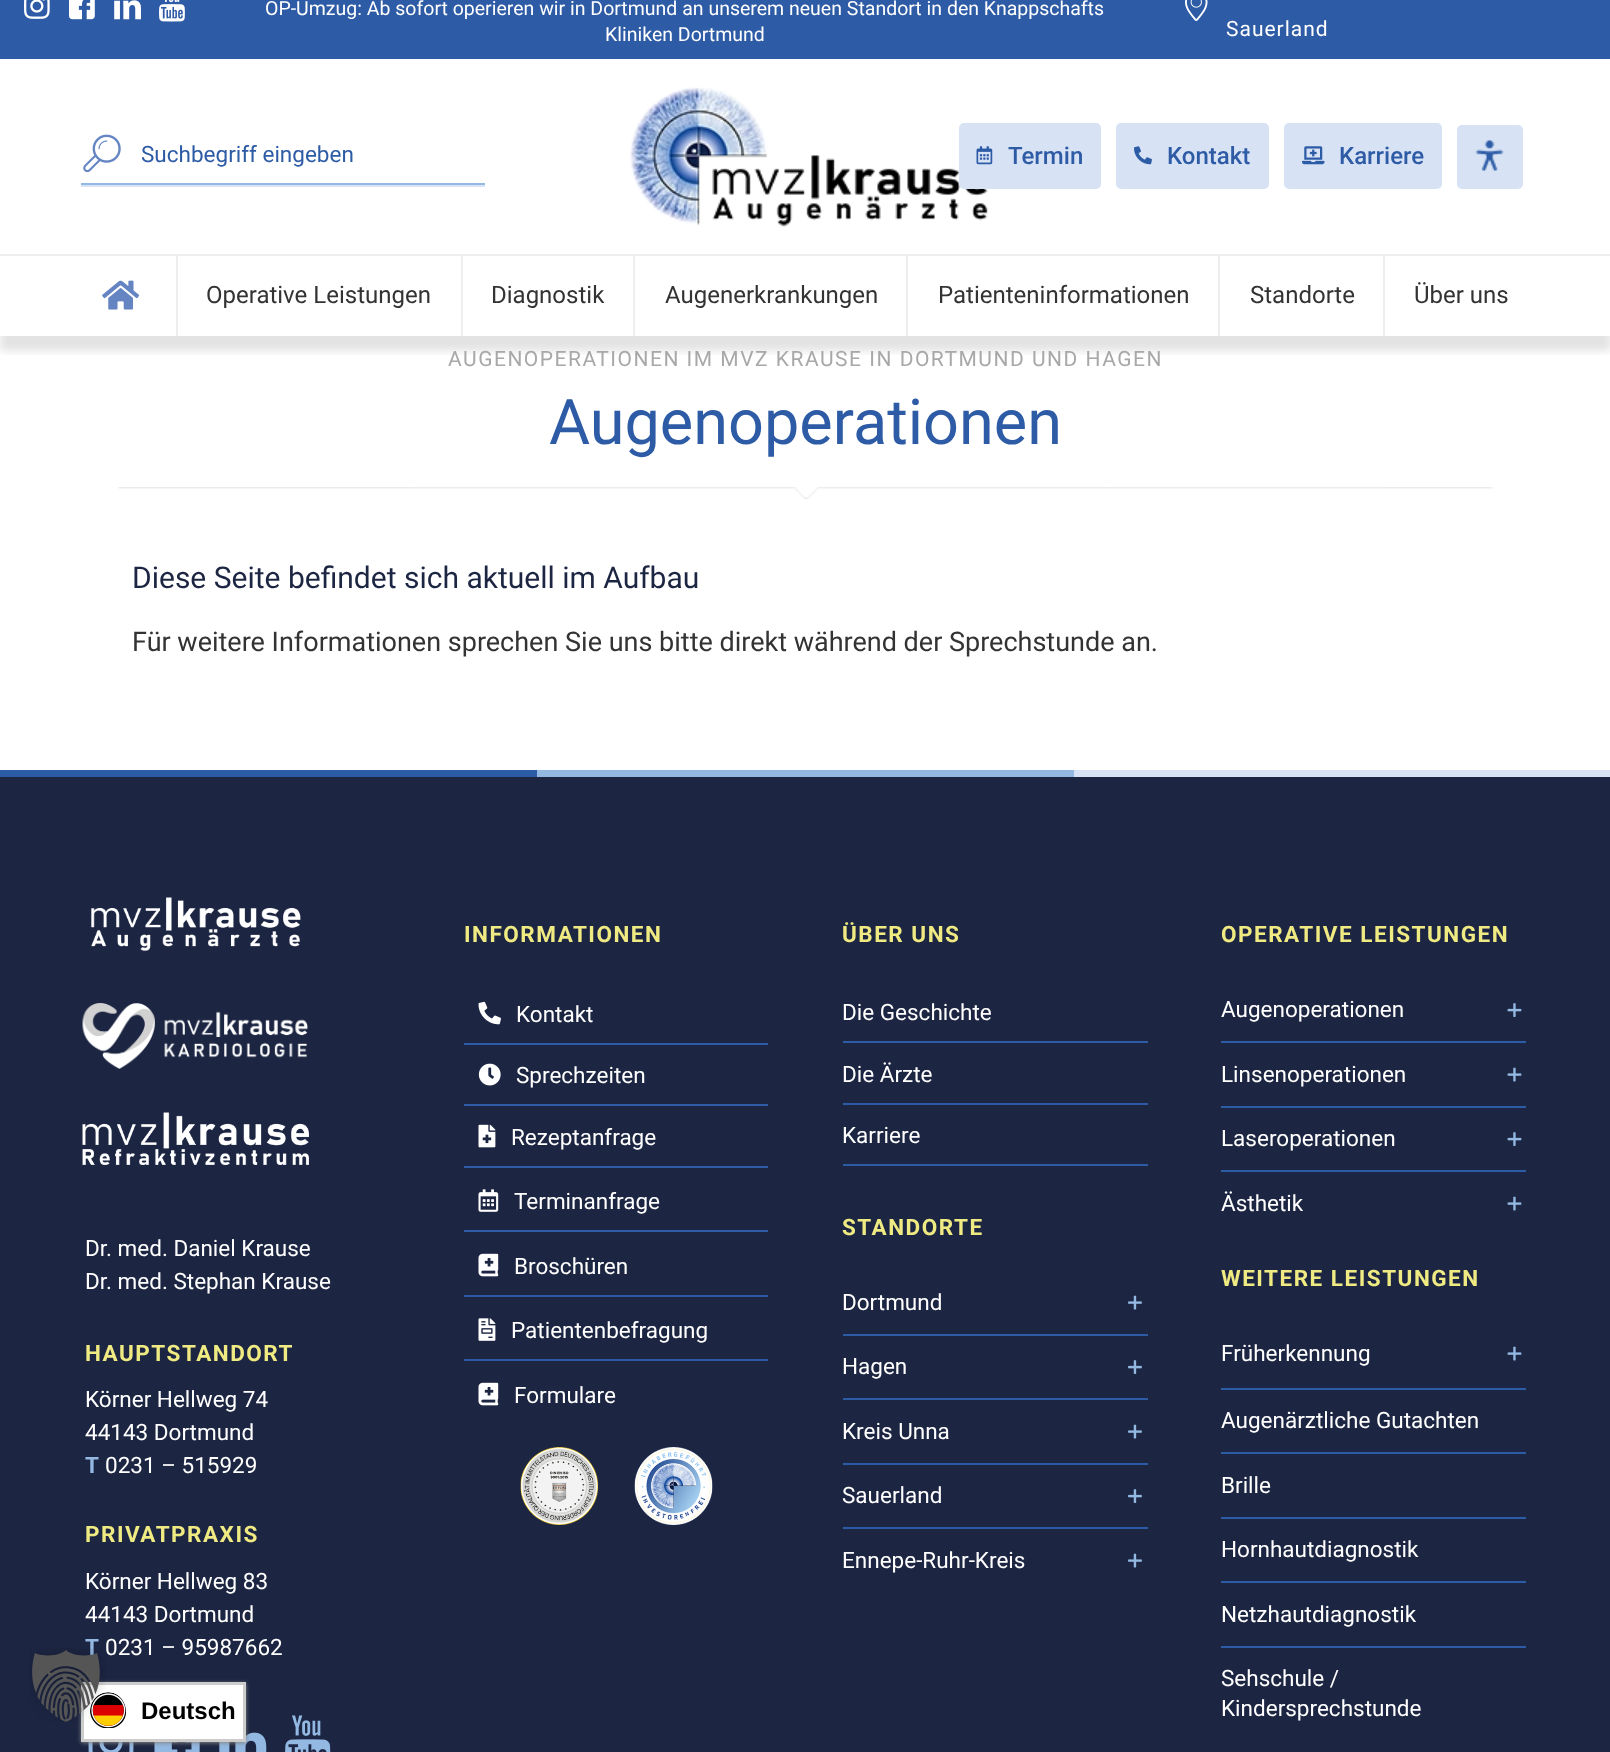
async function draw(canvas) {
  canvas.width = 1610;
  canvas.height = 1752;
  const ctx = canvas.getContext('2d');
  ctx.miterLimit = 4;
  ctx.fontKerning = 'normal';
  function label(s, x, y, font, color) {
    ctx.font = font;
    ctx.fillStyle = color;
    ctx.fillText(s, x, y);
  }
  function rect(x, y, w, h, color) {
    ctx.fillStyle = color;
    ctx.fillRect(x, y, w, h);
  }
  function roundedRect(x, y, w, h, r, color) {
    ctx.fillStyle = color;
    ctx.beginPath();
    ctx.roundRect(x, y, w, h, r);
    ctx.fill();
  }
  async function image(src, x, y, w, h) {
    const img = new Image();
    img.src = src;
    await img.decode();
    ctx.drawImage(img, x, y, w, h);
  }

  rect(0, 0, 1610, 1752, '#fff');
  rect(0, 777, 1610, 975, '#1c2542');
  label('T', 85, 1655, 'bold 22.5px Roboto', '#93b8e2');
  await image('assets/img18.png', 88, 1742, 46, 10);
  await image('assets/img19.png', 154, 1742, 46, 10);
  await image('assets/img20.png', 219, 1732, 48, 20);
  ctx.fillStyle = '#848484';
  ctx.filter = 'blur(2px)';
  ctx.beginPath();
  ctx.rect(81, 1683, 165, 60);
  ctx.fill();
  ctx.filter = 'none';
  ctx.fillStyle = '#fff';
  ctx.beginPath();
  ctx.rect(82.5, 1683.5, 162, 57);
  ctx.fill();
  ctx.strokeStyle = '#ccc';
  ctx.lineWidth = 3;
  ctx.stroke();
  await image('assets/img34.png', 90, 1692, 36, 36);
  await image('assets/img1.png', 29, 1648, 77, 74);
  rect(0, 0, 1610, 59, '#2d5ba5');
  await image('assets/img2.png', 24, 0, 26, 19);
  await image('assets/img3.png', 69, 0, 26, 20);
  await image('assets/img4.png', 114, 0, 27, 20);
  await image('assets/img5.png', 159, 0, 26, 22);
  label('OP-Umzug: Ab sofort operieren wir in Dortmund an unserem neuen Standort in den Knappschafts', 265, 15, '19.5px Roboto', '#fff');
  label('Kliniken Dortmund', 605, 41, '19.5px Roboto', '#fff');
  await image('assets/img6.png', 1185, 0, 23, 21);
  ctx.letterSpacing = '1px';
  label('Sauerland', 1226, 36, '21px Roboto', '#fff');
  rect(81, 185, 404, 2, '#d8e3f7');
  await image('assets/img7.png', 83, 134, 38, 39);
  rect(81, 183, 404, 2, '#93b8e2');
  ctx.letterSpacing = '0px';
  label('Suchbegriff eingeben', 141, 162, '22.5px Roboto', '#2d5ba5');
  await image('assets/img8.png', 629, 87, 359, 140);
  roundedRect(959, 123, 142, 66, 5, '#d8e2f5');
  await image('assets/img9.png', 976, 146, 17, 19);
  label('Termin', 1008, 164, '500 24px Roboto', '#2d5ba5');
  roundedRect(1116, 123, 153, 66, 5, '#d8e2f5');
  await image('assets/img10.png', 1134, 146, 18, 19);
  label('Kontakt', 1167, 164, '500 24px Roboto', '#2d5ba5');
  roundedRect(1284, 123, 158, 66, 5, '#d8e2f5');
  await image('assets/img11.png', 1302, 146, 23, 19);
  label('Karriere', 1339, 164, '500 24px Roboto', '#2d5ba5');
  roundedRect(1457, 125, 66, 64, 5, '#d7e2f4');
  await image('assets/img12.png', 1475, 140, 29, 31);
  ctx.save();
  ctx.beginPath();
  ctx.rect(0, 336, 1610, 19);
  ctx.clip();
  ctx.fillStyle = '#0000001c';
  ctx.filter = 'blur(4px)';
  ctx.beginPath();
  ctx.rect(0, 269, 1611, 82);
  ctx.fill();
  ctx.filter = 'none';
  ctx.restore();
  rect(0, 254, 1610, 2, '#eee');
  await image('assets/img13.png', 102, 280, 38, 30);
  rect(176, 255, 2, 81, '#eee');
  label('Operative Leistungen', 206, 303, '24px Roboto', '#333');
  rect(461, 255, 2, 81, '#eee');
  label('Diagnostik', 491, 303, '24px Roboto', '#333');
  rect(633, 255, 2, 81, '#eee');
  label('Augenerkrankungen', 665, 303, '24px Roboto', '#333');
  rect(906, 255, 2, 81, '#eee');
  label('Patienteninformationen', 938, 303, '24px Roboto', '#333');
  rect(1218, 255, 2, 81, '#eee');
  label('Standorte', 1250, 303, '24px Roboto', '#333');
  rect(1383, 255, 2, 81, '#eee');
  label('Über uns', 1414, 303, '24px Roboto', '#333');
  await image('assets/img14.png', 118, 487, 1375, 12);
  ctx.letterSpacing = '1.5px';
  label('AUGENOPERATIONEN IM MVZ KRAUSE IN DORTMUND UND HAGEN', 448, 366, '21px Roboto', '#a8a8a8');
  ctx.letterSpacing = '0px';
  label('Augenoperationen', 549, 444, '63px Roboto', '#2d5ba5');
  label('Diese Seite befindet sich aktuell im Aufbau', 132, 588, '30px Roboto', '#1c2542');
  label('Für weitere Informationen sprechen Sie uns bitte direkt während der Sprechstunde an.', 132, 651, '27px Roboto', '#333');
  rect(0, 770, 537, 7, '#2d5ca6');
  rect(537, 770, 537, 7, '#93b8e2');
  rect(1074, 770, 536, 7, '#d8e2f5');
  await image('assets/img15.png', 91, 897, 210, 54);
  await image('assets/img16.png', 82, 1003, 227, 66);
  await image('assets/img17.png', 82, 1112, 227, 53);
  label('Dr. med. Daniel Krause', 85, 1256, '22.5px Roboto', '#fff');
  label('Dr. med. Stephan Krause', 85, 1289, '22.5px Roboto', '#fff');
  ctx.letterSpacing = '1.5px';
  label('HAUPTSTANDORT', 85, 1361, 'bold 22.5px Roboto', '#efea82');
  ctx.letterSpacing = '0px';
  label('Körner Hellweg 74', 85, 1407, '22.5px Roboto', '#fff');
  label('44143 Dortmund', 85, 1440, '22.5px Roboto', '#fff');
  label('T', 85, 1473, 'bold 22.5px Roboto', '#93b8e2');
  label('0231 – 515929', 105, 1473, '22.5px Roboto', '#fff');
  ctx.letterSpacing = '1.5px';
  label('PRIVATPRAXIS', 85, 1542, 'bold 22.5px Roboto', '#efea82');
  ctx.letterSpacing = '0px';
  label('Körner Hellweg 83', 85, 1589, '22.5px Roboto', '#fff');
  label('44143 Dortmund', 85, 1622, '22.5px Roboto', '#fff');
  label('0231 – 95987662', 105, 1655, '22.5px Roboto', '#fff');
  await image('assets/img21.png', 285, 1715, 46, 37);
  ctx.letterSpacing = '1.5px';
  label('INFORMATIONEN', 464, 942, 'bold 22.5px Roboto', '#efea82');
  rect(464, 1043, 304, 2, '#2d5ba5');
  await image('assets/img22.png', 478, 1001, 23, 24);
  ctx.letterSpacing = '0px';
  label('Kontakt', 516, 1022, '22.5px Roboto', '#fff');
  rect(464, 1104, 304, 2, '#2d5ba5');
  await image('assets/img23.png', 478, 1063, 23, 23);
  label('Sprechzeiten', 516, 1083, '22.5px Roboto', '#fff');
  rect(464, 1166, 304, 2, '#2d5ba5');
  await image('assets/img24.png', 478, 1124, 18, 24);
  label('Rezeptanfrage', 511, 1145, '22.5px Roboto', '#fff');
  rect(464, 1230, 304, 2, '#2d5ba5');
  await image('assets/img25.png', 478, 1189, 21, 23);
  label('Terminanfrage', 514, 1209, '22.5px Roboto', '#fff');
  rect(464, 1295, 304, 2, '#2d5ba5');
  await image('assets/img26.png', 478, 1253, 21, 24);
  label('Broschüren', 514, 1274, '22.5px Roboto', '#fff');
  rect(464, 1359, 304, 2, '#2d5ba5');
  await image('assets/img27.png', 478, 1318, 18, 23);
  label('Patientenbefragung', 511, 1338, '22.5px Roboto', '#fff');
  await image('assets/img26.png', 478, 1382, 21, 24);
  label('Formulare', 514, 1403, '22.5px Roboto', '#fff');
  await image('assets/img28.png', 520, 1447, 79, 78);
  await image('assets/img29.png', 634, 1447, 79, 78);
  ctx.letterSpacing = '1.5px';
  label('ÜBER UNS', 842, 942, 'bold 22.5px Roboto', '#efea82');
  rect(843, 1041, 305, 2, '#2d5ba5');
  ctx.letterSpacing = '0px';
  label('Die Geschichte', 842, 1020, '22.5px Roboto', '#fff');
  rect(843, 1103, 305, 2, '#2d5ba5');
  label('Die Ärzte', 842, 1082, '22.5px Roboto', '#fff');
  rect(843, 1164, 305, 2, '#2d5ba5');
  label('Karriere', 842, 1143, '22.5px Roboto', '#fff');
  ctx.letterSpacing = '1.5px';
  label('STANDORTE', 842, 1235, 'bold 22.5px Roboto', '#efea82');
  ctx.letterSpacing = '0px';
  label('Dortmund', 842, 1310, '22.5px Roboto', '#fff');
  await image('assets/img30.png', 1128, 1295, 14, 15);
  rect(843, 1334, 305, 2, '#2d5ca6');
  label('Hagen', 842, 1374, '22.5px Roboto', '#fff');
  await image('assets/img31.png', 1128, 1360, 14, 14);
  rect(843, 1398, 305, 2, '#2d5ca6');
  label('Kreis Unna', 842, 1439, '22.5px Roboto', '#fff');
  await image('assets/img30.png', 1128, 1424, 14, 15);
  rect(843, 1463, 305, 2, '#2d5ca6');
  label('Sauerland', 842, 1503, '22.5px Roboto', '#fff');
  await image('assets/img31.png', 1128, 1489, 14, 14);
  rect(843, 1527, 305, 2, '#2d5ca6');
  label('Ennepe-Ruhr-Kreis', 842, 1568, '22.5px Roboto', '#fff');
  await image('assets/img30.png', 1128, 1553, 14, 15);
  ctx.letterSpacing = '1.5px';
  label('OPERATIVE LEISTUNGEN', 1221, 942, 'bold 22.5px Roboto', '#efea82');
  ctx.letterSpacing = '0px';
  label('Augenoperationen', 1221, 1017, '22.5px Roboto', '#fff');
  await image('assets/img32.png', 1507, 1003, 15, 14);
  rect(1221, 1041, 305, 2, '#2d5ca6');
  label('Linsenoperationen', 1221, 1082, '22.5px Roboto', '#fff');
  await image('assets/img33.png', 1507, 1067, 15, 15);
  rect(1221, 1106, 305, 2, '#2d5ca6');
  label('Laseroperationen', 1221, 1146, '22.5px Roboto', '#fff');
  await image('assets/img32.png', 1507, 1132, 15, 14);
  rect(1221, 1170, 305, 2, '#2d5ca6');
  label('Ästhetik', 1221, 1211, '22.5px Roboto', '#fff');
  await image('assets/img33.png', 1507, 1196, 15, 15);
  ctx.letterSpacing = '1.5px';
  label('WEITERE LEISTUNGEN', 1221, 1286, 'bold 22.5px Roboto', '#efea82');
  rect(1221, 1388, 305, 2, '#2d5ca6');
  ctx.letterSpacing = '0px';
  label('Früherkennung', 1221, 1361, '22.5px Roboto', '#fff');
  await image('assets/img33.png', 1507, 1346, 15, 15);
  label('Augenärztliche Gutachten', 1221, 1428, '22.5px Roboto', '#fff');
  rect(1221, 1452, 305, 2, '#2d5ca6');
  label('Brille', 1221, 1493, '22.5px Roboto', '#fff');
  rect(1221, 1517, 305, 2, '#2d5ca6');
  label('Hornhautdiagnostik', 1221, 1557, '22.5px Roboto', '#fff');
  rect(1221, 1581, 305, 2, '#2d5ca6');
  label('Netzhautdiagnostik', 1221, 1622, '22.5px Roboto', '#fff');
  rect(1221, 1646, 305, 2, '#2d5ca6');
  label('Sehschule /', 1221, 1686, '22.5px Roboto', '#fff');
  label('Kindersprechstunde', 1221, 1716, '22.5px Roboto', '#fff');
  label('Deutsch', 141, 1719, 'bold 24px Liberation Sans', '#000');
}

draw(document.querySelector('canvas'));
